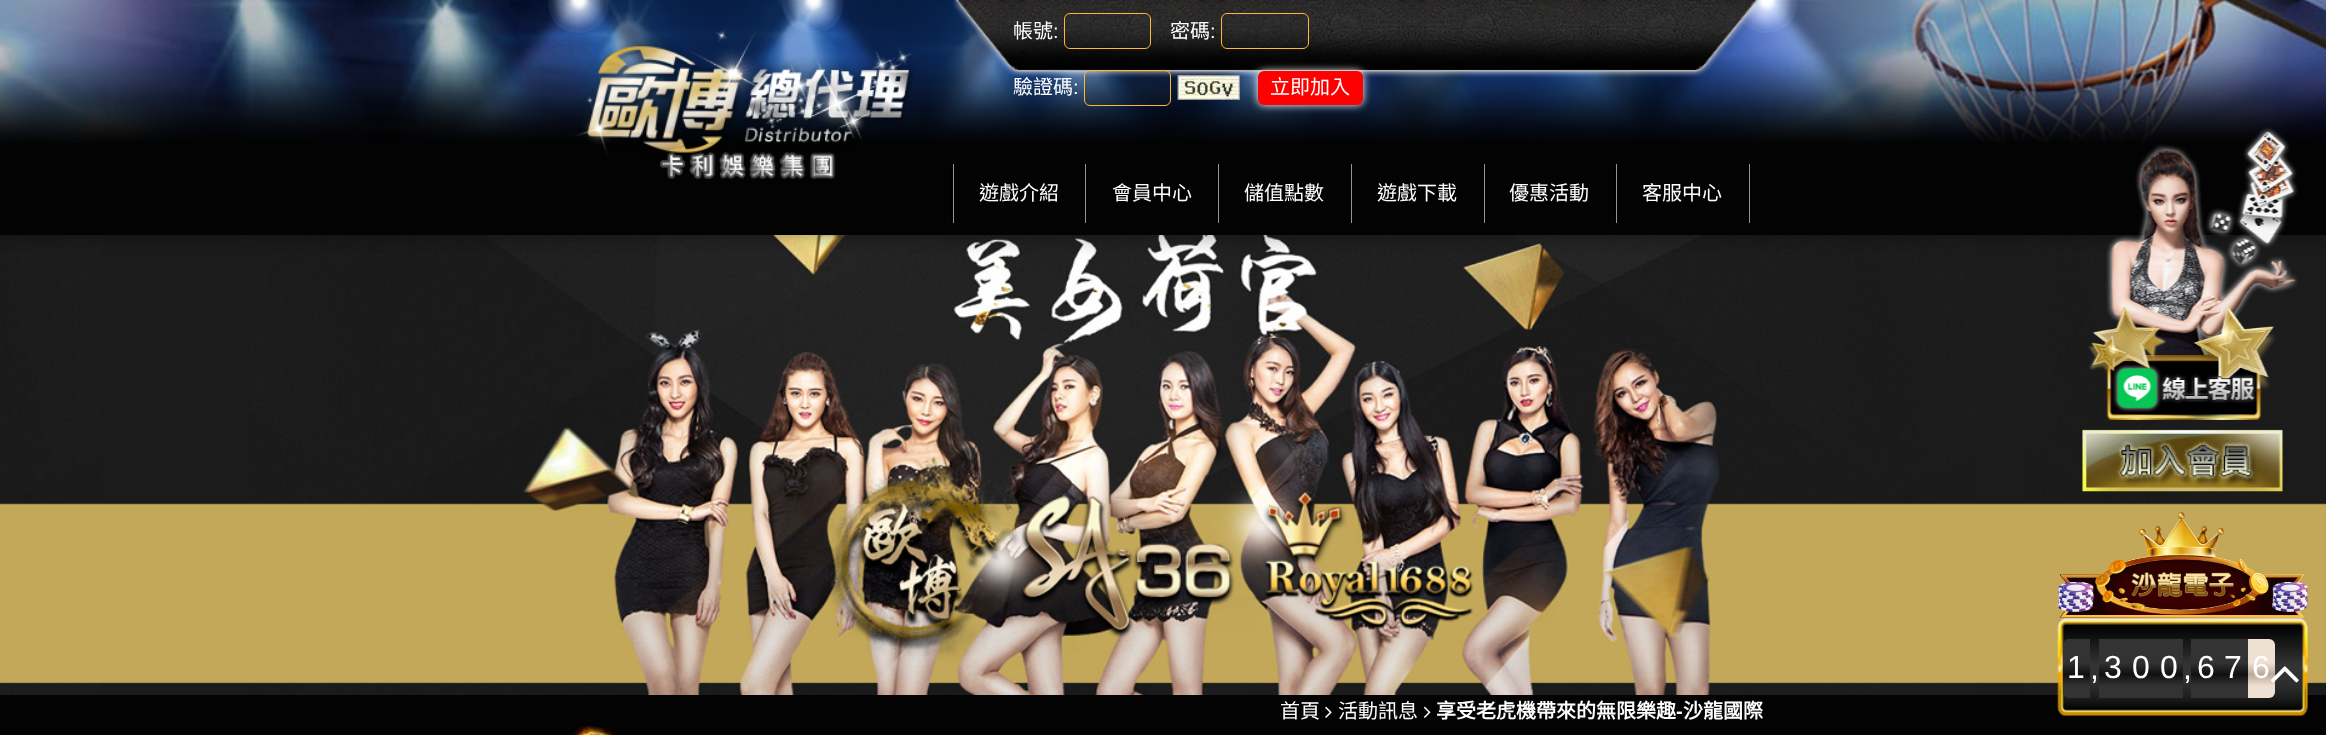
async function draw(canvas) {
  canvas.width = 2326;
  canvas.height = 735;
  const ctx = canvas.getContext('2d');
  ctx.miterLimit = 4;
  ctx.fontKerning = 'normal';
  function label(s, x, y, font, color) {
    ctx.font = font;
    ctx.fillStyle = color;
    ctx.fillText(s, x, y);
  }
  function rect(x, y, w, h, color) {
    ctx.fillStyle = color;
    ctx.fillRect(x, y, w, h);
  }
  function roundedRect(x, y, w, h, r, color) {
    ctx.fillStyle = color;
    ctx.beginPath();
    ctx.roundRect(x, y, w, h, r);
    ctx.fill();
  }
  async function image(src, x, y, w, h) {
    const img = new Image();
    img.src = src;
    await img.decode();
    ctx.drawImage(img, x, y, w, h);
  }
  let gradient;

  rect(0, 0, 2326, 735, '#030303');
  await image('assets/img1.png', 0, 0, 2326, 143);
  await image('assets/img2.png', 953, 0, 805, 77);
  await image('assets/img3.png', 574, 29, 339, 150);
  label('帳號', 1013, 38, '20px Noto Sans CJK TC', '#fff');
  label(':', 1053, 38, '20px Liberation Sans', '#fff');
  ctx.fillStyle = '#2d2d2d26';
  ctx.beginPath();
  ctx.roundRect(1064.5, 13.5, 86, 35, 5.5);
  ctx.fill();
  ctx.strokeStyle = '#ffb832';
  ctx.stroke();
  label('密碼', 1170, 38, '20px Noto Sans CJK TC', '#fff');
  label(':', 1210, 38, '20px Liberation Sans', '#fff');
  ctx.fillStyle = '#2d2d2d26';
  ctx.beginPath();
  ctx.roundRect(1221.5, 13.5, 87, 35, 5.5);
  ctx.fill();
  ctx.stroke();
  label('驗證碼', 1013, 94, '20px Noto Sans CJK TC', '#fff');
  label(':', 1073, 94, '20px Liberation Sans', '#fff');
  ctx.fillStyle = '#2d2d2d26';
  ctx.beginPath();
  ctx.roundRect(1084.5, 70.5, 86, 35, 5.5);
  ctx.fill();
  ctx.stroke();
  await image('assets/img4.png', 1177, 75, 63, 25);
  ctx.fillStyle = '#fff';
  ctx.filter = 'blur(4.5px)';
  ctx.beginPath();
  ctx.roundRect(1258, 71, 105, 34, 6);
  ctx.fill();
  ctx.filter = 'none';
  roundedRect(1258, 71, 105, 34, 6, '#f00');
  label('立即加入', 1270, 94, '20px Noto Sans CJK TC', '#fff');
  rect(1749, 164, 1, 59, '#969595');
  rect(951, 164, 1, 59, '#000');
  rect(1084, 164, 1, 59, '#000');
  rect(953, 164, 1, 59, '#969595');
  label('遊戲介紹', 979, 200, '20px Noto Sans CJK TC', '#fff');
  rect(1216, 164, 1, 59, '#000');
  rect(1085, 164, 1, 59, '#969595');
  label('會員中心', 1112, 200, '20px Noto Sans CJK TC', '#fff');
  rect(1350, 164, 1, 59, '#000');
  rect(1218, 164, 1, 59, '#969595');
  label('儲值點數', 1244, 200, '20px Noto Sans CJK TC', '#fff');
  rect(1483, 164, 1, 59, '#000');
  rect(1351, 164, 1, 59, '#969595');
  label('遊戲下載', 1377, 200, '20px Noto Sans CJK TC', '#fff');
  rect(1615, 164, 1, 59, '#000');
  rect(1484, 164, 1, 59, '#969595');
  label('優惠活動', 1509, 200, '20px Noto Sans CJK TC', '#fff');
  rect(1748, 164, 1, 59, '#000');
  rect(1616, 164, 1, 59, '#969595');
  label('客服中心', 1642, 200, '20px Noto Sans CJK TC', '#fff');
  await image('assets/img7.png', 0, 235, 2326, 460);
  await image('assets/img5.png', 2088, 127, 210, 293);
  await image('assets/img6.png', 2082, 429, 201, 63);
  await image('assets/img8.png', 2057, 512, 251, 106);
  await image('assets/img9.png', 2057, 617, 251, 99);
  gradient = ctx.createLinearGradient(2076, 639, 2076, 698);
  gradient.addColorStop(0, '#333');
  gradient.addColorStop(0.4, '#333');
  gradient.addColorStop(0.6, '#101010');
  gradient.addColorStop(0.8, '#333');
  gradient.addColorStop(1, '#333');
  ctx.fillStyle = gradient;
  ctx.beginPath();
  ctx.roundRect(2063, 639, 27, 59, [6, 0, 0, 6]);
  ctx.fill();
  label('1', 2067, 678, '32px Liberation Sans', '#fff');
  label(',', 2090, 679, '32px Liberation Sans', '#fff');
  gradient = ctx.createLinearGradient(2113, 639, 2113, 698);
  gradient.addColorStop(0, '#333');
  gradient.addColorStop(0.4, '#333');
  gradient.addColorStop(0.6, '#101010');
  gradient.addColorStop(0.8, '#333');
  gradient.addColorStop(1, '#333');
  ctx.fillStyle = gradient;
  ctx.fillRect(2099, 639, 29, 59);
  label('3', 2104, 678, '32px Liberation Sans', '#fff');
  gradient = ctx.createLinearGradient(2141, 639, 2141, 698);
  gradient.addColorStop(0, '#333');
  gradient.addColorStop(0.4, '#333');
  gradient.addColorStop(0.6, '#101010');
  gradient.addColorStop(0.8, '#333');
  gradient.addColorStop(1, '#333');
  ctx.fillStyle = gradient;
  ctx.fillRect(2128, 639, 27, 59);
  label('0', 2132, 678, '32px Liberation Sans', '#fff');
  gradient = ctx.createLinearGradient(2169, 639, 2169, 698);
  gradient.addColorStop(0, '#333');
  gradient.addColorStop(0.4, '#333');
  gradient.addColorStop(0.6, '#101010');
  gradient.addColorStop(0.8, '#333');
  gradient.addColorStop(1, '#333');
  ctx.fillStyle = gradient;
  ctx.fillRect(2155, 639, 28, 59);
  label('0', 2160, 678, '32px Liberation Sans', '#fff');
  label(',', 2183, 679, '32px Liberation Sans', '#fff');
  gradient = ctx.createLinearGradient(2206, 639, 2206, 698);
  gradient.addColorStop(0, '#333');
  gradient.addColorStop(0.4, '#333');
  gradient.addColorStop(0.6, '#101010');
  gradient.addColorStop(0.8, '#333');
  gradient.addColorStop(1, '#333');
  ctx.fillStyle = gradient;
  ctx.fillRect(2191, 639, 29, 59);
  label('6', 2197, 678, '32px Liberation Sans', '#fff');
  gradient = ctx.createLinearGradient(2234, 639, 2234, 698);
  gradient.addColorStop(0, '#333');
  gradient.addColorStop(0.4, '#333');
  gradient.addColorStop(0.6, '#101010');
  gradient.addColorStop(0.8, '#333');
  gradient.addColorStop(1, '#333');
  ctx.fillStyle = gradient;
  ctx.fillRect(2220, 639, 28, 59);
  label('7', 2224, 678, '32px Liberation Sans', '#fff');
  gradient = ctx.createLinearGradient(2261, 639, 2261, 698);
  gradient.addColorStop(0, '#eee0d3');
  gradient.addColorStop(0.4, '#eee0d3');
  gradient.addColorStop(0.6, '#bbaa9a');
  gradient.addColorStop(0.8, '#eee0d3');
  gradient.addColorStop(1, '#eee0d3');
  ctx.fillStyle = gradient;
  ctx.beginPath();
  ctx.roundRect(2248, 639, 27, 59, [0, 6, 6, 0]);
  ctx.fill();
  label('6', 2252, 678, '32px Liberation Sans', '#fff');
  await image('assets/img10.png', 2271, 666, 28, 17);
  label('首頁', 1280, 718, '20px Noto Sans CJK TC', '#fff');
  await image('assets/img11.png', 1325, 706, 7, 12);
  label('活動訊息', 1338, 718, '20px Noto Sans CJK TC', '#fff');
  await image('assets/img12.png', 1423, 706, 8, 12);
  label('享受老虎機帶來的無限樂趣', 1436, 718, 'bold 20px Noto Sans CJK TC', '#fff');
  label('-', 1676, 718, 'bold 20px Liberation Sans', '#fff');
  label('沙龍國際', 1683, 718, 'bold 20px Noto Sans CJK TC', '#fff');
  await image('assets/img13.png', 571, 726, 47, 9);
}

draw(document.querySelector('canvas'));
